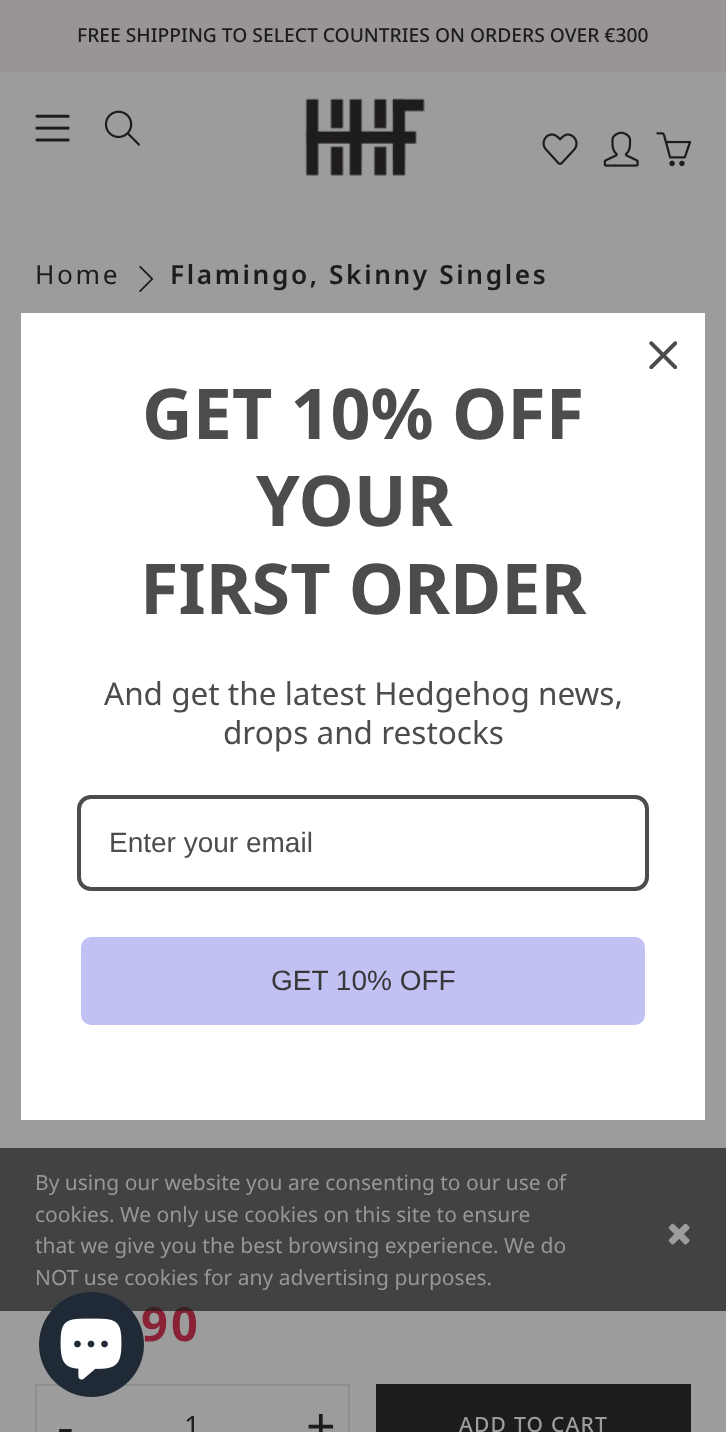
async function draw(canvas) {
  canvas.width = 726;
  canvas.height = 1432;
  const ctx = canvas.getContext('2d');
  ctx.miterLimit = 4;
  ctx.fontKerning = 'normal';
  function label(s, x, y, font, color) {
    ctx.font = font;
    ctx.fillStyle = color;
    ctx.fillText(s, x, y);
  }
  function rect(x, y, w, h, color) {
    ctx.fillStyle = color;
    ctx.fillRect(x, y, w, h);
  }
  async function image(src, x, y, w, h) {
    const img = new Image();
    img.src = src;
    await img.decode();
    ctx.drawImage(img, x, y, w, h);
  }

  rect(0, 0, 726, 1432, '#9c9c9c');
  rect(0, 0, 726, 72, '#999596');
  label('FREE SHIPPING TO SELECT COUNTRIES ON ORDERS OVER €300', 77, 42, '500 19.25px Noto Sans', '#1c1c1c');
  await image('assets/img1.png', 305, 98, 120, 78);
  await image('assets/img2.png', 35, 114, 35, 28);
  await image('assets/img3.png', 104, 110, 36, 36);
  await image('assets/img4.png', 542, 133, 36, 32);
  await image('assets/img5.png', 603, 131, 36, 36);
  await image('assets/img6.png', 656, 132, 36, 35);
  ctx.letterSpacing = '2.6px';
  label('Home', 35, 284, '26.25px Noto Sans', '#1c1c1c');
  await image('assets/img7.png', 139, 265, 15, 28);
  label('Flamingo, Skinny Singles', 170, 284, '600 26.25px Noto Sans', '#1c1c1c');
  ctx.letterSpacing = '3px';
  label('90', 141, 1341, 'bold 47px Noto Sans', '#8a2236');
  ctx.strokeStyle = '#8e8e8e';
  ctx.lineWidth = 2;
  ctx.strokeRect(36, 1385, 313, 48);
  ctx.letterSpacing = '0px';
  label('-', 57, 1445, '52px Noto Sans', '#1c1c1c');
  label('1', 184, 1436, '28px Noto Sans', '#1c1c1c');
  label('+', 306, 1445, '52px Noto Sans', '#1c1c1c');
  rect(376, 1384, 315, 48, '#1c1c1c');
  ctx.letterSpacing = '1.25px';
  label('ADD TO CART', 459, 1432, '500 21px Noto Sans', '#9c9c9c');
  rect(21, 313, 684, 807, '#fff');
  await image('assets/img8.png', 649, 341, 28, 28);
  ctx.letterSpacing = '0px';
  label('GET 10% OFF', 142, 439, 'bold 70px "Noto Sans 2"', '#4c4c4c');
  label('YOUR', 256, 526, 'bold 70px "Noto Sans 2"', '#4c4c4c');
  label('FIRST ORDER', 140, 614, 'bold 70px "Noto Sans 2"', '#4c4c4c');
  label('And get the latest Hedgehog news,', 104, 705, '31.5px "Noto Sans 2"', '#4c4c4c');
  label('drops and restocks', 223, 744, '31.5px "Noto Sans 2"', '#4c4c4c');
  ctx.beginPath();
  ctx.roundRect(79, 797, 568, 92, 12);
  ctx.strokeStyle = '#4c4c4c';
  ctx.lineWidth = 4;
  ctx.stroke();
  label('Enter your email', 109, 852, '28px Liberation Sans', '#4c4c4c');
  ctx.fillStyle = '#c2c1f3';
  ctx.beginPath();
  ctx.roundRect(79, 935, 568, 92, 12);
  ctx.fill();
  ctx.strokeStyle = '#fff';
  ctx.stroke();
  label('GET 10% OFF', 271, 990, '28px Liberation Sans', '#383838');
  rect(0, 1148, 726, 163, '#1c1c1cb3');
  label('By using our website you are consenting to our use of', 35, 1190, '21px Noto Sans', '#969798');
  label('cookies. We only use cookies on this site to ensure', 35, 1222, '21px Noto Sans', '#969798');
  label('that we give you the best browsing experience. We do', 35, 1253, '21px Noto Sans', '#969798');
  label('NOT use cookies for any advertising purposes.', 35, 1285, '21px Noto Sans', '#969798');
  await image('assets/img9.png', 668, 1223, 22, 22);
  ctx.fillStyle = '#202a36';
  ctx.beginPath();
  ctx.arc(91.5, 1344.5, 52.5, 0, 2 * Math.PI);
  ctx.fill();
  await image('assets/img10.png', 60, 1318, 62, 62);
}

draw(document.querySelector('canvas'));
